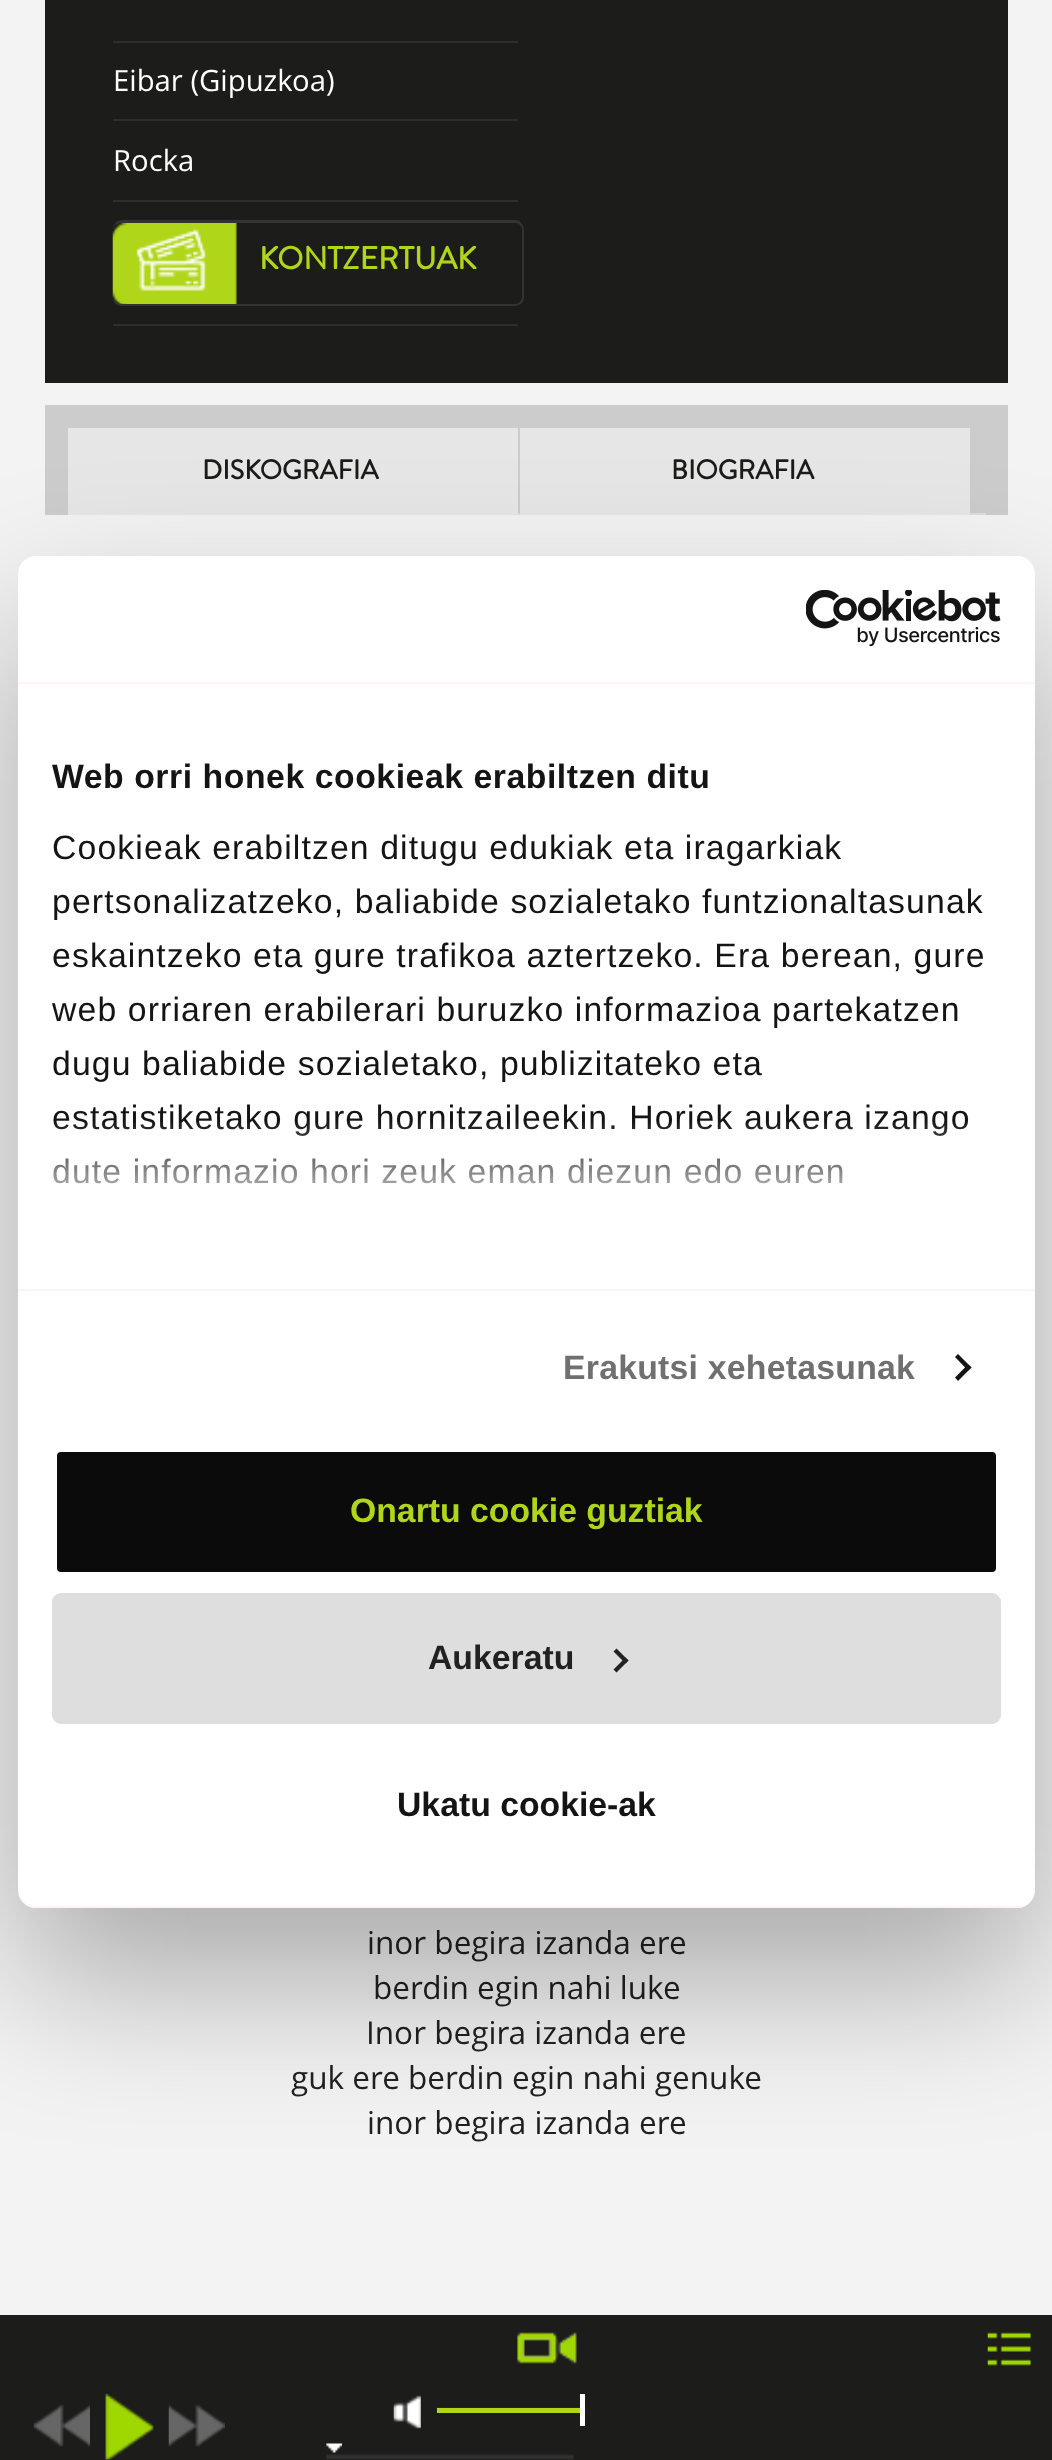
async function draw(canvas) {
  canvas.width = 1052;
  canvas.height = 2460;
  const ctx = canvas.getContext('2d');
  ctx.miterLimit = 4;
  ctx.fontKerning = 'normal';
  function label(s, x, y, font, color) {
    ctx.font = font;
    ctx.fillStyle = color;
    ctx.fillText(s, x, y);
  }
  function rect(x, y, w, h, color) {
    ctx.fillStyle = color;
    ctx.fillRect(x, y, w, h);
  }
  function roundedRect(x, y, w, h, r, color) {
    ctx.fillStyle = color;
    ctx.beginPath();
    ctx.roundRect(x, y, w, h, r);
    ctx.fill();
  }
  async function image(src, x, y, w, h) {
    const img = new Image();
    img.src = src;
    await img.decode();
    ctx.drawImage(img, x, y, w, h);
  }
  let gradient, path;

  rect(0, 0, 1052, 2460, '#f3f3f3');
  rect(45, 0, 963, 383, '#1c1c1b');
  rect(113, 41, 405, 2, '#2e2e2d');
  rect(113, 119, 405, 2, '#2e2e2d');
  label('Eibar (Gipuzkoa)', 113, 91, '29.25px Open Sans', '#fff');
  rect(113, 200, 405, 2, '#2e2e2d');
  label('Rocka', 113, 171, '29.25px Open Sans', '#fff');
  rect(113, 324, 405, 2, '#2e2e2d');
  await image('assets/img1.png', 112, 223, 125, 83);
  ctx.fillStyle = '#333332';
  path = new Path2D('M122 220H515C520 220 524 225 524 230V297C524 302 520 306 515 306H122C117 306 112 302 112 297V230C112 225 117 220 122 220ZM122 223H515C519 223 522 226 522 230V297C522 301 519 304 515 304H122C117 304 112 301 112 297V230C112 226 117 223 122 223Z');
  ctx.fill(path, 'evenodd');
  label('KONTZERTUAK', 259, 269, 'bold 31.5px Brandon Grotesque', '#b0d61a');
  rect(45, 405, 963, 110, '#ccc');
  rect(518, 513, 468, 2, '#ddd');
  rect(68, 428, 450, 87, '#e6e6e6');
  label('DISKOGRAFIA', 202, 479, 'bold 27px Brandon Grotesque', '#1c1c1b');
  rect(520, 428, 450, 87, '#e6e6e6');
  label('BIOGRAFIA', 671, 479, 'bold 27px Brandon Grotesque', '#1c1c1b');
  label('inor begira izanda ere', 367, 1954, '31.5px Open Sans', '#212121');
  label('berdin egin nahi luke', 373, 1999, '31.5px Open Sans', '#212121');
  label('Inor begira izanda ere', 366, 2044, '31.5px Open Sans', '#212121');
  label('guk ere berdin egin nahi genuke', 291, 2089, '31.5px Open Sans', '#212121');
  label('inor begira izanda ere', 367, 2134, '31.5px Open Sans', '#212121');
  ctx.fillStyle = '#0000004d';
  ctx.filter = 'blur(76.5px)';
  ctx.beginPath();
  ctx.roundRect(18, 628, 1017, 1352, 18);
  ctx.fill();
  ctx.filter = 'none';
  roundedRect(18, 556, 1017, 1352, 18, '#fff');
  rect(18, 682, 1017, 2, '#fff3f3');
  await image('assets/img2.png', 806, 590, 195, 57);
  rect(18, 1289, 1017, 2, '#fff3f3');
  ctx.letterSpacing = '0.55px';
  label('Web orri honek cookieak erabiltzen ditu', 52, 788, 'bold 33.75px Liberation Sans', '#141414');
  ctx.letterSpacing = '1.12px';
  label('Cookieak erabiltzen ditugu edukiak eta iragarkiak', 52, 859, '33.75px Liberation Sans', '#141414');
  label('pertsonalizatzeko, baliabide sozialetako funtzionaltasunak', 52, 913, '33.75px Liberation Sans', '#141414');
  label('eskaintzeko eta gure trafikoa aztertzeko. Era berean, gure', 52, 967, '33.75px Liberation Sans', '#141414');
  label('web orriaren erabilerari buruzko informazioa partekatzen', 52, 1021, '33.75px Liberation Sans', '#141414');
  label('dugu baliabide sozialetako, publizitateko eta', 52, 1075, '33.75px Liberation Sans', '#141414');
  label('estatistiketako gure hornitzaileekin. Horiek aukera izango', 52, 1129, '33.75px Liberation Sans', '#141414');
  label('dute informazio hori zeuk eman diezun edo euren', 52, 1183, '33.75px Liberation Sans', '#141414');
  gradient = ctx.createLinearGradient(512, 1289, 512, 1120);
  gradient.addColorStop(0, '#fff');
  gradient.addColorStop(0.5, '#ffffffcc');
  gradient.addColorStop(1, '#ffffff00');
  ctx.fillStyle = gradient;
  ctx.fillRect(53, 1122, 915, 62);
  ctx.letterSpacing = '0.25px';
  label('Erakutsi xehetasunak', 563, 1379, 'bold 33.75px Liberation Sans', '#707070');
  ctx.fillStyle = '#141414';
  path = new Path2D('M958 1354L971.5 1367.5L968 1370.5L955 1357Z');
  ctx.fill(path);
  path = new Path2D('M968 1364.5L971.5 1367.5L958 1381L955 1377.5Z');
  ctx.fill(path);
  ctx.save();
  ctx.beginPath();
  ctx.roundRect(18, 556, 1017, 1352, 18);
  ctx.clip();
  rect(28, 1906, 997, 2, '#fff3f3');
  ctx.restore();
  ctx.fillStyle = '#0b0b0b';
  ctx.beginPath();
  ctx.roundRect(54.5, 1449.5, 944, 125, 6.5);
  ctx.fill();
  ctx.strokeStyle = '#fff';
  ctx.lineWidth = 5;
  ctx.stroke();
  ctx.letterSpacing = '0px';
  label('Onartu cookie guztiak', 350, 1522, 'bold 33.75px Liberation Sans', '#b0d61a');
  ctx.fillStyle = '#dedede';
  ctx.beginPath();
  ctx.roundRect(54.5, 1595.5, 944, 126, 6.5);
  ctx.fill();
  ctx.strokeStyle = '#dedede';
  ctx.stroke();
  label('Aukeratu', 428, 1669, 'bold 33.75px Liberation Sans', '#212121');
  ctx.fillStyle = '#222';
  path = new Path2D('M616.5 1648.5L628.5 1660.5L625.5 1663.5L613.5 1651.5Z');
  ctx.fill(path);
  path = new Path2D('M625.5 1657.5L628.5 1660.5L616.5 1672.5L613.5 1669.5Z');
  ctx.fill(path);
  label('Ukatu cookie-ak', 397, 1816, 'bold 33.75px Liberation Sans', '#141414');
  rect(0, 2315, 1052, 145, '#1c1c1b');
  await image('assets/img3.png', 33, 2404, 57, 43);
  await image('assets/img4.png', 105, 2393, 49, 67);
  await image('assets/img5.png', 168, 2404, 57, 43);
  await image('assets/img6.png', 517, 2332, 60, 32);
  await image('assets/img7.png', 987, 2332, 44, 34);
  await image('assets/img8.png', 393, 2395, 28, 34);
  await image('assets/img9.png', 436, 2407, 150, 6);
  rect(437, 2408, 148, 5, '#b0d61a');
  rect(580, 2394, 5, 32, '#fff');
  await image('assets/img10.png', 326, 2454, 248, 6);
  await image('assets/img11.png', 326, 2443, 16, 10);
}

draw(document.querySelector('canvas'));
